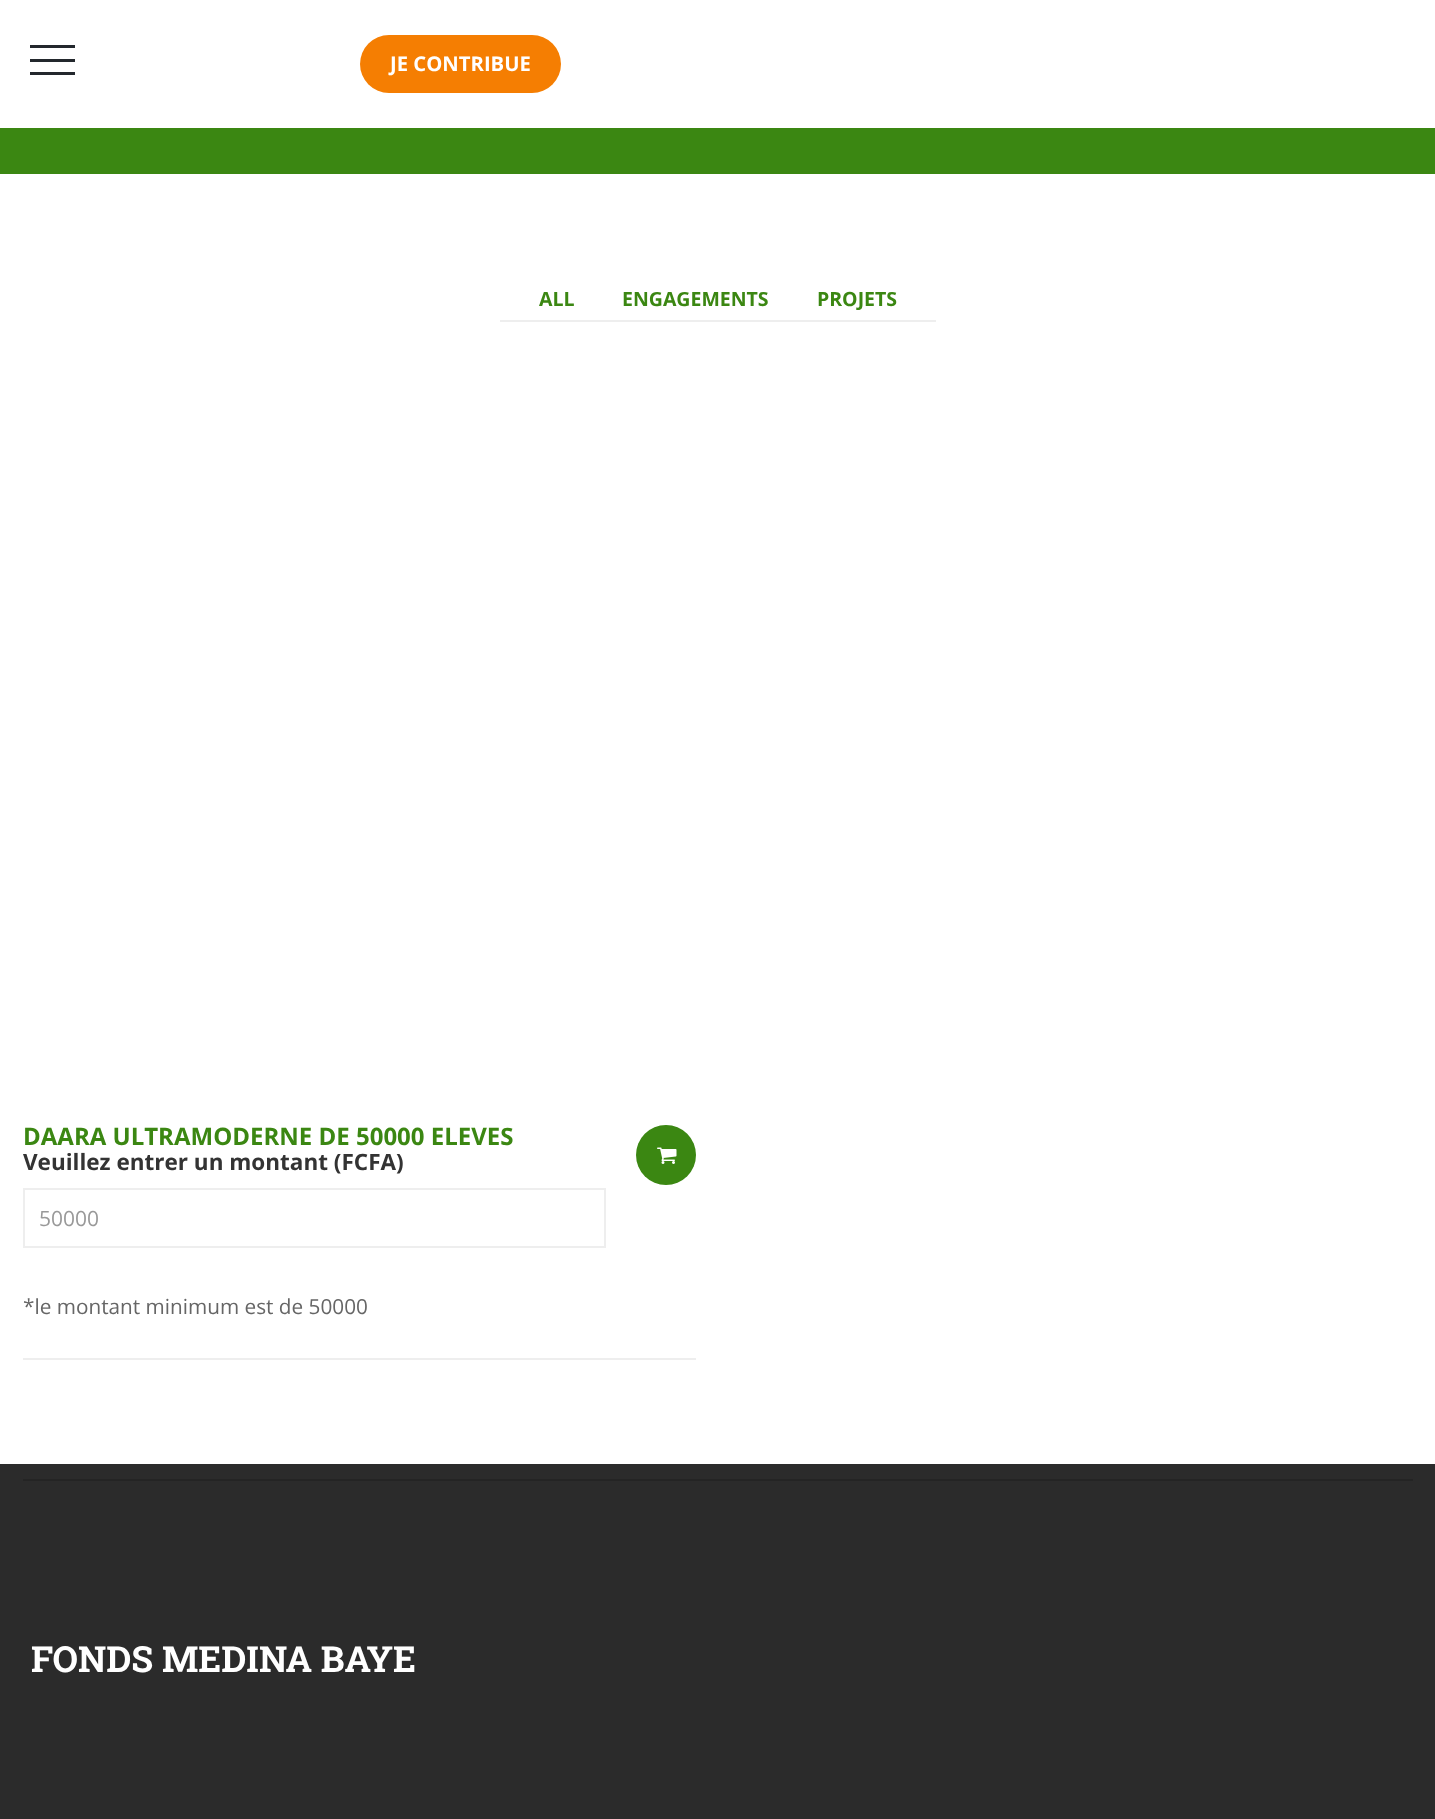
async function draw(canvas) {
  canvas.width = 1435;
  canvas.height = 1819;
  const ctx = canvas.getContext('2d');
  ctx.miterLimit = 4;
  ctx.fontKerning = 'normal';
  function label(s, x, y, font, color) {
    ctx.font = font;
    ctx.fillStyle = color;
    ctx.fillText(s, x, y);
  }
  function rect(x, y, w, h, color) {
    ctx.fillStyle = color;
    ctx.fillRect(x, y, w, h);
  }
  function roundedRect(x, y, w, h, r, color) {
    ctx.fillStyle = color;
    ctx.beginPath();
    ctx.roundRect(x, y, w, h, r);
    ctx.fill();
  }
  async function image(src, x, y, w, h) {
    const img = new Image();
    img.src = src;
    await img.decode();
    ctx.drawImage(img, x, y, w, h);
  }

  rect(0, 0, 1435, 1819, '#fff');
  rect(30, 59, 45, 3, '#23282d');
  rect(30, 45, 45, 3, '#23282d');
  rect(30, 72, 45, 3, '#23282d');
  roundedRect(360, 35, 201, 58, 29, '#f57e02');
  label('JE CONTRIBUE', 390, 71, 'bold 20.25px Open Sans', '#fff');
  rect(0, 128, 1435, 46, '#3b8712');
  rect(500, 320, 436, 2, '#eee');
  label('ALL', 539, 306, 'bold 19.5px Open Sans', '#3b8712');
  label('ENGAGEMENTS', 622, 306, 'bold 19.5px Open Sans', '#3b8712');
  label('PROJETS', 817, 306, 'bold 19.5px Open Sans', '#3b8712');
  rect(23, 1358, 673, 2, '#eee');
  label('DAARA ULTRAMODERNE DE 50000 ELEVES', 23, 1145, 'bold 24px Open Sans', '#3b8712');
  ctx.beginPath();
  ctx.arc(666, 1155, 30, 0, 2 * Math.PI);
  ctx.fill();
  await image('assets/img1.png', 657, 1147, 20, 17);
  label('Veuillez entrer un montant (FCFA)', 23, 1170, 'bold 22.5px Open Sans', '#333');
  ctx.strokeStyle = '#eee';
  ctx.lineWidth = 2;
  ctx.strokeRect(24, 1189, 581, 58);
  label('50000', 39, 1226, '21px Open Sans', '#999');
  label('*le montant minimum est de 50000', 23, 1314, '20.75px Open Sans', '#666');
  rect(0, 1464, 1435, 355, '#2b2b2b');
  rect(23, 1479, 1390, 2, '#242424');
  label('FONDS MEDINA BAYE', 31, 1672, 'bold 36px Roboto Slab', '#fff');
}

draw(document.querySelector('canvas'));
